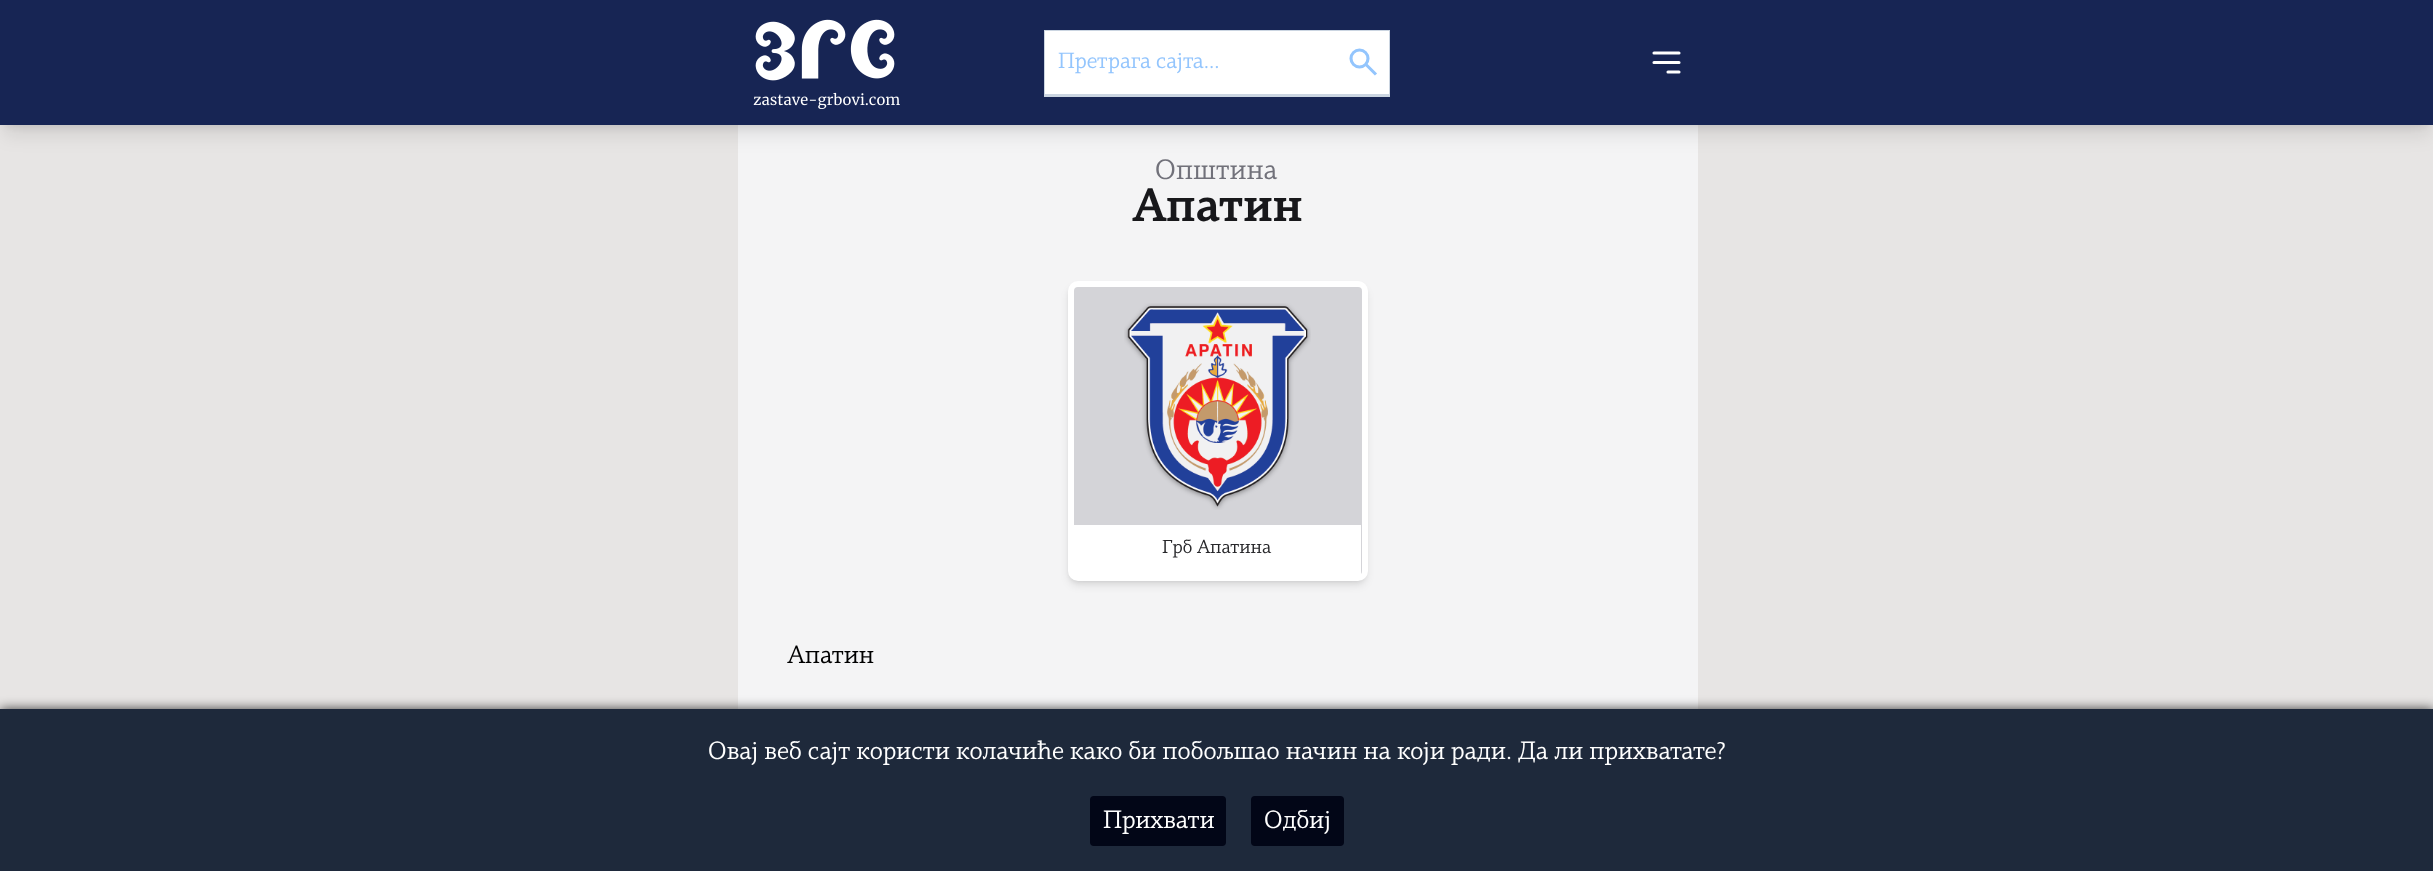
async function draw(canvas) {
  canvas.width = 2433;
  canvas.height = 871;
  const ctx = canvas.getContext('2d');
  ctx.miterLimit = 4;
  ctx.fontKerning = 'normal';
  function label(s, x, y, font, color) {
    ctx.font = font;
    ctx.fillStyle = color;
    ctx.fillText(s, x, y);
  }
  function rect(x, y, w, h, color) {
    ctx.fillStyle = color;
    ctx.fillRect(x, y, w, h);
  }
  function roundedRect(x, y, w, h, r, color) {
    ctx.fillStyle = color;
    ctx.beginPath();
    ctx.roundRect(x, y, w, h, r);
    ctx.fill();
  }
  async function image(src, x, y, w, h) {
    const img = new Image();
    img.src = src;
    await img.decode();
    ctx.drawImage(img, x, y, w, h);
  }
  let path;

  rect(0, 0, 2433, 871, '#e7e5e4');
  rect(738, 125, 960, 584, '#f4f4f5');
  ctx.fillStyle = '#0000001a';
  ctx.filter = 'blur(4px)';
  ctx.beginPath();
  ctx.rect(5, 10, 2424, 115);
  ctx.fill();
  ctx.filter = 'none';
  ctx.filter = 'blur(9.5px)';
  ctx.beginPath();
  ctx.rect(4, 16, 2426, 118);
  ctx.fill();
  ctx.filter = 'none';
  rect(0, 0, 2433, 125, '#172554');
  await image('assets/img1.png', 753, 19, 147, 90);
  rect(1045, 31, 344, 63, '#fff');
  ctx.beginPath();
  ctx.arc(1359.5, 58.5, 8.5, 0, 2 * Math.PI);
  ctx.strokeStyle = '#93c5fd';
  ctx.lineWidth = 3.1;
  ctx.stroke();
  path = new Path2D('M1366 64.5L1376 74.5');
  ctx.stroke(path);
  rect(1044, 30, 346, 1, '#cbd5e1');
  rect(1389, 30, 1, 66, '#cbd5e1');
  rect(1044, 94, 346, 3, '#cbd5e1');
  rect(1044, 30, 1, 66, '#cbd5e1');
  label('Претрага сајта...', 1058, 68, '22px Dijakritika', '#93c5fd');
  path = new Path2D('M1654 53H1679M1654 62.5H1679M1668 72H1679');
  ctx.strokeStyle = '#fff';
  ctx.lineCap = 'round';
  ctx.lineJoin = 'round';
  ctx.stroke(path);
  label('Општина', 1155, 179, '28px Dijakritika', '#71717a');
  label('Апатин', 1132, 221, 'bold 47px Dijakritika', '#18181b');
  ctx.fillStyle = '#0000001a';
  ctx.filter = 'blur(2.5px)';
  ctx.beginPath();
  ctx.roundRect(1070, 286, 295, 295, 8);
  ctx.fill();
  ctx.filter = 'none';
  ctx.filter = 'blur(4px)';
  ctx.beginPath();
  ctx.roundRect(1069, 288, 297, 297, 9);
  ctx.fill();
  ctx.filter = 'none';
  ctx.fillStyle = '#d4d4d8';
  ctx.beginPath();
  ctx.roundRect(1071, 284, 294, 294, 7);
  ctx.fill();
  ctx.lineWidth = 6;
  ctx.lineJoin = 'miter';
  ctx.stroke();
  await image('assets/img2.png', 1124, 303, 187, 207);
  rect(1074, 525, 287, 50, '#fff');
  label('Грб Апатина', 1162, 553, '18.75px Dijakritika', '#27272a');
  label('Апатин', 787, 663, '25px Dijakritika', '#000');
  ctx.fillStyle = '#000000bf';
  ctx.filter = 'blur(6px)';
  ctx.beginPath();
  ctx.rect(0, 709, 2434, 162);
  ctx.fill();
  ctx.filter = 'none';
  rect(0, 709, 2433, 162, '#1e293b');
  label('Овај веб сајт користи колачиће како би побољшао начин на који ради. Да ли прихватате?', 708, 759, '25px Dijakritika', '#fff');
  roundedRect(1090, 796, 136, 50, 4, '#020617');
  label('Прихвати', 1103, 828, '25px Dijakritika', '#fff');
  roundedRect(1251, 796, 93, 50, 4, '#020617');
  label('Одбиј', 1264, 828, '25px Dijakritika', '#fff');
}

draw(document.querySelector('canvas'));
